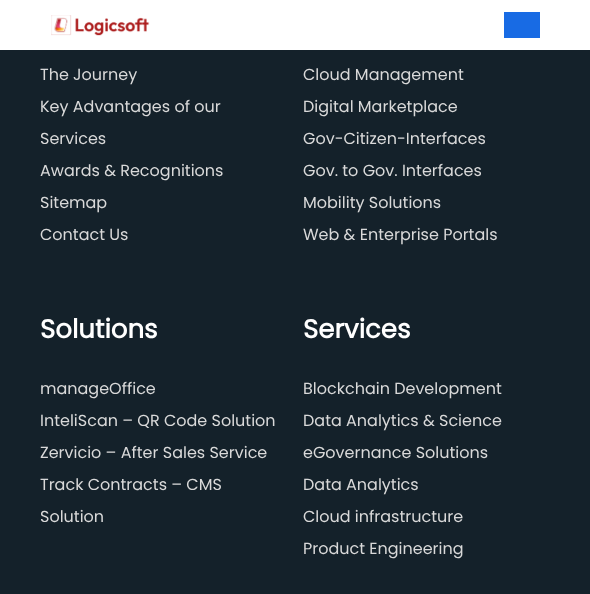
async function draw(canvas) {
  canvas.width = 590;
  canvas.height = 594;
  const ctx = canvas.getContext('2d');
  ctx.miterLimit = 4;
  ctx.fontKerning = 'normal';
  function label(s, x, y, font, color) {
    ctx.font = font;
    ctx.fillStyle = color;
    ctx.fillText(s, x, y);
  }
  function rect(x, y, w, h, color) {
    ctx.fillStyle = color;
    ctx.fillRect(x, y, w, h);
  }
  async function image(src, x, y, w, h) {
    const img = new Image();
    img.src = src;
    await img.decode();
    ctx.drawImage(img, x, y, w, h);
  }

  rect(0, 0, 590, 594, '#14212a');
  rect(0, 0, 590, 50, '#fff');
  await image('assets/img1.png', 51, 15, 99, 21);
  rect(504, 12, 36, 26, '#186be4');
  label('The Journey', 40, 80, '16px Poppins', '#d9d9d9');
  label('Key Advantages of our', 40, 112, '16px Poppins', '#d9d9d9');
  label('Services', 40, 144, '16px Poppins', '#d9d9d9');
  label('Awards & Recognitions', 40, 176, '16px Poppins', '#d9d9d9');
  label('Sitemap', 40, 208, '16px Poppins', '#d9d9d9');
  label('Contact Us', 40, 240, '16px Poppins', '#d9d9d9');
  label('Cloud Management', 303, 80, '16px Poppins', '#d9d9d9');
  label('Digital Marketplace', 303, 112, '16px Poppins', '#d9d9d9');
  label('Gov-Citizen-Interfaces', 303, 144, '16px Poppins', '#d9d9d9');
  label('Gov. to Gov. Interfaces', 303, 176, '16px Poppins', '#d9d9d9');
  label('Mobility Solutions', 303, 208, '16px Poppins', '#d9d9d9');
  label('Web & Enterprise Portals', 303, 240, '16px Poppins', '#d9d9d9');
  label('Solutions', 40, 338, 'bold 26px Poppins', '#fff');
  label('manageOffice', 40, 394, '16px Poppins', '#d9d9d9');
  label('InteliScan – QR Code Solution', 40, 426, '16px Poppins', '#d9d9d9');
  label('Zervicio – After Sales Service', 40, 458, '16px Poppins', '#d9d9d9');
  label('Track Contracts – CMS', 40, 490, '16px Poppins', '#d9d9d9');
  label('Solution', 40, 522, '16px Poppins', '#d9d9d9');
  label('Services', 303, 338, 'bold 26px Poppins', '#fff');
  label('Blockchain Development', 303, 394, '16px Poppins', '#d9d9d9');
  label('Data Analytics & Science', 303, 426, '16px Poppins', '#d9d9d9');
  label('eGovernance Solutions', 303, 458, '16px Poppins', '#d9d9d9');
  label('Data Analytics', 303, 490, '16px Poppins', '#d9d9d9');
  label('Cloud infrastructure', 303, 522, '16px Poppins', '#d9d9d9');
  label('Product Engineering', 303, 554, '16px Poppins', '#d9d9d9');
}

draw(document.querySelector('canvas'));
